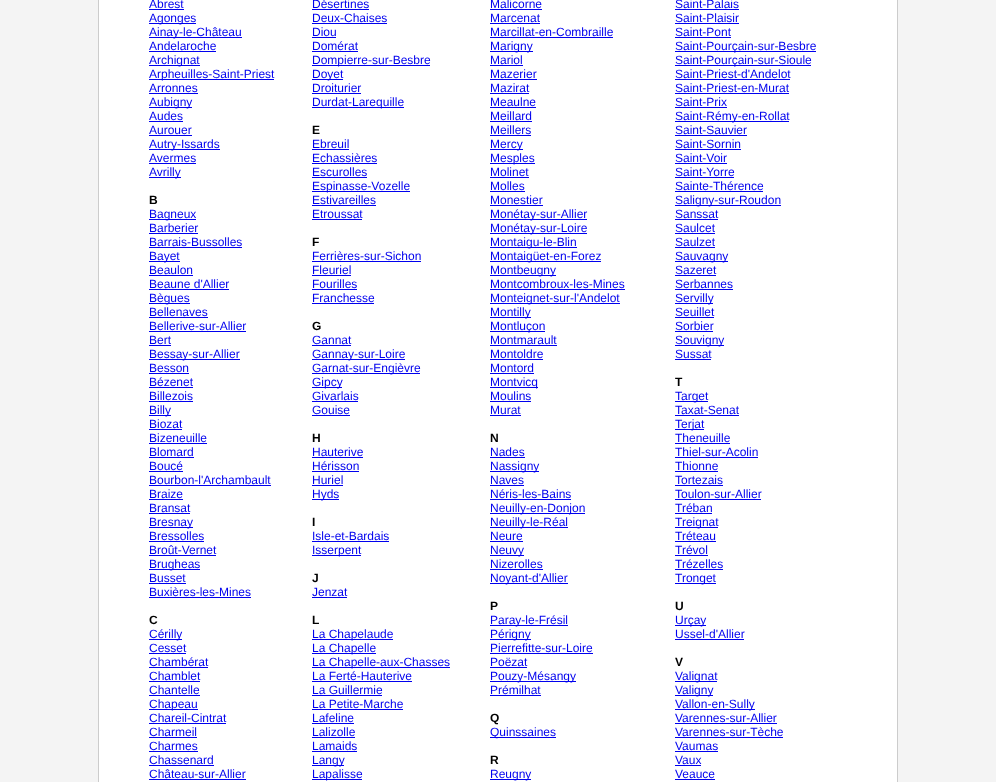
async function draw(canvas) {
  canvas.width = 996;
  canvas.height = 782;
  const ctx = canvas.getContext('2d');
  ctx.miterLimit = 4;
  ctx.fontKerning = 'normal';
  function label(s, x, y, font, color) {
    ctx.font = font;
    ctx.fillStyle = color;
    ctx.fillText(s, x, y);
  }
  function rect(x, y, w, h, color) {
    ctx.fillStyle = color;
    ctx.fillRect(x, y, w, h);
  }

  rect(0, 0, 996, 782, '#f4f4f4');
  rect(98, 0, 1, 782, '#ccc');
  rect(99, 0, 798, 782, '#fff');
  label('Abrest', 149, 8, '12px Liberation Sans', '#00e');
  rect(149, 9, 35, 1, '#00e');
  rect(149, 23, 47, 1, '#00e');
  label('Agonges', 149, 22, '12px Liberation Sans', '#00e');
  rect(149, 37, 93, 1, '#00e');
  label('Ainay-le-Château', 149, 36, '12px Liberation Sans', '#00e');
  label('Andelaroche', 149, 50, '12px Liberation Sans', '#00e');
  rect(149, 51, 67, 1, '#00e');
  rect(149, 65, 51, 1, '#00e');
  label('Archignat', 149, 64, '12px Liberation Sans', '#00e');
  rect(149, 79, 125, 1, '#00e');
  label('Arpheuilles-Saint-Priest', 149, 78, '12px Liberation Sans', '#00e');
  label('Arronnes', 149, 92, '12px Liberation Sans', '#00e');
  rect(149, 93, 49, 1, '#00e');
  rect(149, 107, 43, 1, '#00e');
  label('Aubigny', 149, 106, '12px Liberation Sans', '#00e');
  label('Audes', 149, 120, '12px Liberation Sans', '#00e');
  rect(149, 121, 34, 1, '#00e');
  label('Aurouer', 149, 134, '12px Liberation Sans', '#00e');
  rect(149, 135, 43, 1, '#00e');
  rect(149, 149, 71, 1, '#00e');
  label('Autry-Issards', 149, 148, '12px Liberation Sans', '#00e');
  label('Avermes', 149, 162, '12px Liberation Sans', '#00e');
  rect(149, 163, 47, 1, '#00e');
  rect(149, 177, 32, 1, '#00e');
  label('Avrilly', 149, 176, '12px Liberation Sans', '#00e');
  label('B', 149, 204, 'bold 12px Liberation Sans', '#000');
  rect(149, 219, 47, 1, '#00e');
  label('Bagneux', 149, 218, '12px Liberation Sans', '#00e');
  label('Barberier', 149, 232, '12px Liberation Sans', '#00e');
  rect(149, 233, 49, 1, '#00e');
  label('Barrais-Bussolles', 149, 246, '12px Liberation Sans', '#00e');
  rect(149, 247, 93, 1, '#00e');
  rect(149, 261, 31, 1, '#00e');
  label('Bayet', 149, 260, '12px Liberation Sans', '#00e');
  label('Beaulon', 149, 274, '12px Liberation Sans', '#00e');
  rect(149, 275, 44, 1, '#00e');
  label('Beaune d\'Allier', 149, 288, '12px Liberation Sans', '#00e');
  rect(149, 289, 80, 1, '#00e');
  rect(149, 303, 41, 1, '#00e');
  label('Bègues', 149, 302, '12px Liberation Sans', '#00e');
  label('Bellenaves', 149, 316, '12px Liberation Sans', '#00e');
  rect(149, 317, 59, 1, '#00e');
  label('Bellerive-sur-Allier', 149, 330, '12px Liberation Sans', '#00e');
  rect(149, 331, 97, 1, '#00e');
  label('Bert', 149, 344, '12px Liberation Sans', '#00e');
  rect(149, 345, 22, 1, '#00e');
  rect(149, 359, 91, 1, '#00e');
  label('Bessay-sur-Allier', 149, 358, '12px Liberation Sans', '#00e');
  label('Besson', 149, 372, '12px Liberation Sans', '#00e');
  rect(149, 373, 40, 1, '#00e');
  label('Bézenet', 149, 386, '12px Liberation Sans', '#00e');
  rect(149, 387, 44, 1, '#00e');
  label('Billezois', 149, 400, '12px Liberation Sans', '#00e');
  rect(149, 401, 44, 1, '#00e');
  rect(149, 415, 22, 1, '#00e');
  label('Billy', 149, 414, '12px Liberation Sans', '#00e');
  label('Biozat', 149, 428, '12px Liberation Sans', '#00e');
  rect(149, 429, 33, 1, '#00e');
  label('Bizeneuille', 149, 442, '12px Liberation Sans', '#00e');
  rect(149, 443, 58, 1, '#00e');
  label('Blomard', 149, 456, '12px Liberation Sans', '#00e');
  rect(149, 457, 45, 1, '#00e');
  label('Boucé', 149, 470, '12px Liberation Sans', '#00e');
  rect(149, 471, 34, 1, '#00e');
  label('Bourbon-l\'Archambault', 149, 484, '12px Liberation Sans', '#00e');
  rect(149, 485, 122, 1, '#00e');
  label('Braize', 149, 498, '12px Liberation Sans', '#00e');
  rect(149, 499, 34, 1, '#00e');
  label('Bransat', 149, 512, '12px Liberation Sans', '#00e');
  rect(149, 513, 41, 1, '#00e');
  rect(149, 527, 44, 1, '#00e');
  label('Bresnay', 149, 526, '12px Liberation Sans', '#00e');
  label('Bressolles', 149, 540, '12px Liberation Sans', '#00e');
  rect(149, 541, 55, 1, '#00e');
  label('Broût-Vernet', 149, 554, '12px Liberation Sans', '#00e');
  rect(149, 555, 67, 1, '#00e');
  rect(149, 569, 51, 1, '#00e');
  label('Brugheas', 149, 568, '12px Liberation Sans', '#00e');
  label('Busset', 149, 582, '12px Liberation Sans', '#00e');
  rect(149, 583, 37, 1, '#00e');
  label('Buxières-les-Mines', 149, 596, '12px Liberation Sans', '#00e');
  rect(149, 597, 102, 1, '#00e');
  label('C', 149, 624, 'bold 12px Liberation Sans', '#000');
  rect(149, 639, 33, 1, '#00e');
  label('Cérilly', 149, 638, '12px Liberation Sans', '#00e');
  label('Cesset', 149, 652, '12px Liberation Sans', '#00e');
  rect(149, 653, 37, 1, '#00e');
  label('Chambérat', 149, 666, '12px Liberation Sans', '#00e');
  rect(149, 667, 59, 1, '#00e');
  label('Chamblet', 149, 680, '12px Liberation Sans', '#00e');
  rect(149, 681, 51, 1, '#00e');
  label('Chantelle', 149, 694, '12px Liberation Sans', '#00e');
  rect(149, 695, 51, 1, '#00e');
  rect(149, 709, 49, 1, '#00e');
  label('Chapeau', 149, 708, '12px Liberation Sans', '#00e');
  label('Chareil-Cintrat', 149, 722, '12px Liberation Sans', '#00e');
  rect(149, 723, 77, 1, '#00e');
  label('Charmeil', 149, 736, '12px Liberation Sans', '#00e');
  rect(149, 737, 48, 1, '#00e');
  label('Charmes', 149, 750, '12px Liberation Sans', '#00e');
  rect(149, 751, 49, 1, '#00e');
  label('Chassenard', 149, 764, '12px Liberation Sans', '#00e');
  rect(149, 765, 65, 1, '#00e');
  label('Château-sur-Allier', 149, 778, '12px Liberation Sans', '#00e');
  rect(149, 779, 97, 1, '#00e');
  label('Désertines', 312, 8, '12px Liberation Sans', '#00e');
  rect(312, 9, 57, 1, '#00e');
  label('Deux-Chaises', 312, 22, '12px Liberation Sans', '#00e');
  rect(312, 23, 75, 1, '#00e');
  label('Diou', 312, 36, '12px Liberation Sans', '#00e');
  rect(312, 37, 24, 1, '#00e');
  label('Domérat', 312, 50, '12px Liberation Sans', '#00e');
  rect(312, 51, 46, 1, '#00e');
  rect(312, 65, 118, 1, '#00e');
  label('Dompierre-sur-Besbre', 312, 64, '12px Liberation Sans', '#00e');
  rect(312, 79, 31, 1, '#00e');
  label('Doyet', 312, 78, '12px Liberation Sans', '#00e');
  label('Droiturier', 312, 92, '12px Liberation Sans', '#00e');
  rect(312, 93, 49, 1, '#00e');
  rect(312, 107, 92, 1, '#00e');
  label('Durdat-Larequille', 312, 106, '12px Liberation Sans', '#00e');
  label('E', 312, 134, 'bold 12px Liberation Sans', '#000');
  label('Ebreuil', 312, 148, '12px Liberation Sans', '#00e');
  rect(312, 149, 37, 1, '#00e');
  label('Echassières', 312, 162, '12px Liberation Sans', '#00e');
  rect(312, 163, 65, 1, '#00e');
  label('Escurolles', 312, 176, '12px Liberation Sans', '#00e');
  rect(312, 177, 55, 1, '#00e');
  rect(312, 191, 98, 1, '#00e');
  label('Espinasse-Vozelle', 312, 190, '12px Liberation Sans', '#00e');
  label('Estivareilles', 312, 204, '12px Liberation Sans', '#00e');
  rect(312, 205, 64, 1, '#00e');
  label('Etroussat', 312, 218, '12px Liberation Sans', '#00e');
  rect(312, 219, 50, 1, '#00e');
  label('F', 312, 246, 'bold 12px Liberation Sans', '#000');
  label('Ferrières-sur-Sichon', 312, 260, '12px Liberation Sans', '#00e');
  rect(312, 261, 109, 1, '#00e');
  label('Fleuriel', 312, 274, '12px Liberation Sans', '#00e');
  rect(312, 275, 39, 1, '#00e');
  label('Fourilles', 312, 288, '12px Liberation Sans', '#00e');
  rect(312, 289, 45, 1, '#00e');
  label('Franchesse', 312, 302, '12px Liberation Sans', '#00e');
  rect(312, 303, 62, 1, '#00e');
  label('G', 312, 330, 'bold 12px Liberation Sans', '#000');
  label('Gannat', 312, 344, '12px Liberation Sans', '#00e');
  rect(312, 345, 39, 1, '#00e');
  rect(312, 359, 93, 1, '#00e');
  label('Gannay-sur-Loire', 312, 358, '12px Liberation Sans', '#00e');
  rect(312, 373, 108, 1, '#00e');
  label('Garnat-sur-Engièvre', 312, 372, '12px Liberation Sans', '#00e');
  rect(312, 387, 30, 1, '#00e');
  label('Gipcy', 312, 386, '12px Liberation Sans', '#00e');
  label('Givarlais', 312, 400, '12px Liberation Sans', '#00e');
  rect(312, 401, 46, 1, '#00e');
  label('Gouise', 312, 414, '12px Liberation Sans', '#00e');
  rect(312, 415, 38, 1, '#00e');
  label('H', 312, 442, 'bold 12px Liberation Sans', '#000');
  label('Hauterive', 312, 456, '12px Liberation Sans', '#00e');
  rect(312, 457, 51, 1, '#00e');
  label('Hérisson', 312, 470, '12px Liberation Sans', '#00e');
  rect(312, 471, 47, 1, '#00e');
  label('Huriel', 312, 484, '12px Liberation Sans', '#00e');
  rect(312, 485, 31, 1, '#00e');
  rect(312, 499, 27, 1, '#00e');
  label('Hyds', 312, 498, '12px Liberation Sans', '#00e');
  label('I', 312, 526, 'bold 12px Liberation Sans', '#000');
  label('Isle-et-Bardais', 312, 540, '12px Liberation Sans', '#00e');
  rect(312, 541, 77, 1, '#00e');
  rect(312, 555, 49, 1, '#00e');
  label('Isserpent', 312, 554, '12px Liberation Sans', '#00e');
  label('J', 312, 582, 'bold 12px Liberation Sans', '#000');
  label('Jenzat', 312, 596, '12px Liberation Sans', '#00e');
  rect(312, 597, 35, 1, '#00e');
  label('L', 312, 624, 'bold 12px Liberation Sans', '#000');
  rect(312, 639, 81, 1, '#00e');
  label('La Chapelaude', 312, 638, '12px Liberation Sans', '#00e');
  rect(312, 653, 64, 1, '#00e');
  label('La Chapelle', 312, 652, '12px Liberation Sans', '#00e');
  rect(312, 667, 138, 1, '#00e');
  label('La Chapelle-aux-Chasses', 312, 666, '12px Liberation Sans', '#00e');
  label('La Ferté-Hauterive', 312, 680, '12px Liberation Sans', '#00e');
  rect(312, 681, 100, 1, '#00e');
  label('La Guillermie', 312, 694, '12px Liberation Sans', '#00e');
  rect(312, 695, 70, 1, '#00e');
  label('La Petite-Marche', 312, 708, '12px Liberation Sans', '#00e');
  rect(312, 709, 91, 1, '#00e');
  label('Lafeline', 312, 722, '12px Liberation Sans', '#00e');
  rect(312, 723, 42, 1, '#00e');
  label('Lalizolle', 312, 736, '12px Liberation Sans', '#00e');
  rect(312, 737, 43, 1, '#00e');
  label('Lamaids', 312, 750, '12px Liberation Sans', '#00e');
  rect(312, 751, 45, 1, '#00e');
  rect(312, 765, 32, 1, '#00e');
  label('Langy', 312, 764, '12px Liberation Sans', '#00e');
  rect(312, 779, 50, 1, '#00e');
  label('Lapalisse', 312, 778, '12px Liberation Sans', '#00e');
  label('Malicorne', 490, 8, '12px Liberation Sans', '#00e');
  rect(490, 9, 52, 1, '#00e');
  label('Marcenat', 490, 22, '12px Liberation Sans', '#00e');
  rect(490, 23, 50, 1, '#00e');
  label('Marcillat-en-Combraille', 490, 36, '12px Liberation Sans', '#00e');
  rect(490, 37, 123, 1, '#00e');
  rect(490, 51, 43, 1, '#00e');
  label('Marigny', 490, 50, '12px Liberation Sans', '#00e');
  label('Mariol', 490, 64, '12px Liberation Sans', '#00e');
  rect(490, 65, 33, 1, '#00e');
  label('Mazerier', 490, 78, '12px Liberation Sans', '#00e');
  rect(490, 79, 47, 1, '#00e');
  label('Mazirat', 490, 92, '12px Liberation Sans', '#00e');
  rect(490, 93, 39, 1, '#00e');
  label('Meaulne', 490, 106, '12px Liberation Sans', '#00e');
  rect(490, 107, 46, 1, '#00e');
  label('Meillard', 490, 120, '12px Liberation Sans', '#00e');
  rect(490, 121, 42, 1, '#00e');
  label('Meillers', 490, 134, '12px Liberation Sans', '#00e');
  rect(490, 135, 41, 1, '#00e');
  rect(490, 149, 33, 1, '#00e');
  label('Mercy', 490, 148, '12px Liberation Sans', '#00e');
  rect(490, 163, 45, 1, '#00e');
  label('Mesples', 490, 162, '12px Liberation Sans', '#00e');
  label('Molinet', 490, 176, '12px Liberation Sans', '#00e');
  rect(490, 177, 39, 1, '#00e');
  label('Molles', 490, 190, '12px Liberation Sans', '#00e');
  rect(490, 191, 35, 1, '#00e');
  label('Monestier', 490, 204, '12px Liberation Sans', '#00e');
  rect(490, 205, 53, 1, '#00e');
  rect(490, 219, 97, 1, '#00e');
  label('Monétay-sur-Allier', 490, 218, '12px Liberation Sans', '#00e');
  rect(490, 233, 97, 1, '#00e');
  label('Monétay-sur-Loire', 490, 232, '12px Liberation Sans', '#00e');
  rect(490, 247, 87, 1, '#00e');
  label('Montaigu-le-Blin', 490, 246, '12px Liberation Sans', '#00e');
  rect(490, 261, 111, 1, '#00e');
  label('Montaigüet-en-Forez', 490, 260, '12px Liberation Sans', '#00e');
  rect(490, 275, 66, 1, '#00e');
  label('Montbeugny', 490, 274, '12px Liberation Sans', '#00e');
  label('Montcombroux-les-Mines', 490, 288, '12px Liberation Sans', '#00e');
  rect(490, 289, 135, 1, '#00e');
  rect(490, 303, 130, 1, '#00e');
  label('Monteignet-sur-l\'Andelot', 490, 302, '12px Liberation Sans', '#00e');
  rect(490, 317, 41, 1, '#00e');
  label('Montilly', 490, 316, '12px Liberation Sans', '#00e');
  rect(490, 331, 55, 1, '#00e');
  label('Montluçon', 490, 330, '12px Liberation Sans', '#00e');
  label('Montmarault', 490, 344, '12px Liberation Sans', '#00e');
  rect(490, 345, 67, 1, '#00e');
  label('Montoldre', 490, 358, '12px Liberation Sans', '#00e');
  rect(490, 359, 53, 1, '#00e');
  label('Montord', 490, 372, '12px Liberation Sans', '#00e');
  rect(490, 373, 44, 1, '#00e');
  rect(490, 387, 48, 1, '#00e');
  label('Montvicq', 490, 386, '12px Liberation Sans', '#00e');
  label('Moulins', 490, 400, '12px Liberation Sans', '#00e');
  rect(490, 401, 41, 1, '#00e');
  label('Murat', 490, 414, '12px Liberation Sans', '#00e');
  rect(490, 415, 31, 1, '#00e');
  label('N', 490, 442, 'bold 12px Liberation Sans', '#000');
  label('Nades', 490, 456, '12px Liberation Sans', '#00e');
  rect(490, 457, 35, 1, '#00e');
  rect(490, 471, 49, 1, '#00e');
  label('Nassigny', 490, 470, '12px Liberation Sans', '#00e');
  label('Naves', 490, 484, '12px Liberation Sans', '#00e');
  rect(490, 485, 34, 1, '#00e');
  label('Néris-les-Bains', 490, 498, '12px Liberation Sans', '#00e');
  rect(490, 499, 81, 1, '#00e');
  rect(490, 513, 95, 1, '#00e');
  label('Neuilly-en-Donjon', 490, 512, '12px Liberation Sans', '#00e');
  rect(490, 527, 78, 1, '#00e');
  label('Neuilly-le-Réal', 490, 526, '12px Liberation Sans', '#00e');
  label('Neure', 490, 540, '12px Liberation Sans', '#00e');
  rect(490, 541, 33, 1, '#00e');
  rect(490, 555, 34, 1, '#00e');
  label('Neuvy', 490, 554, '12px Liberation Sans', '#00e');
  label('Nizerolles', 490, 568, '12px Liberation Sans', '#00e');
  rect(490, 569, 53, 1, '#00e');
  rect(490, 583, 78, 1, '#00e');
  label('Noyant-d\'Allier', 490, 582, '12px Liberation Sans', '#00e');
  label('P', 490, 610, 'bold 12px Liberation Sans', '#000');
  rect(490, 625, 78, 1, '#00e');
  label('Paray-le-Frésil', 490, 624, '12px Liberation Sans', '#00e');
  rect(490, 639, 41, 1, '#00e');
  label('Périgny', 490, 638, '12px Liberation Sans', '#00e');
  label('Pierrefitte-sur-Loire', 490, 652, '12px Liberation Sans', '#00e');
  rect(490, 653, 103, 1, '#00e');
  label('Poëzat', 490, 666, '12px Liberation Sans', '#00e');
  rect(490, 667, 37, 1, '#00e');
  rect(490, 681, 86, 1, '#00e');
  label('Pouzy-Mésangy', 490, 680, '12px Liberation Sans', '#00e');
  label('Prémilhat', 490, 694, '12px Liberation Sans', '#00e');
  rect(490, 695, 51, 1, '#00e');
  label('Q', 490, 722, 'bold 12px Liberation Sans', '#000');
  rect(490, 737, 66, 1, '#00e');
  label('Quinssaines', 490, 736, '12px Liberation Sans', '#00e');
  label('R', 490, 764, 'bold 12px Liberation Sans', '#000');
  rect(490, 779, 41, 1, '#00e');
  label('Reugny', 490, 778, '12px Liberation Sans', '#00e');
  label('Saint-Palais', 675, 8, '12px Liberation Sans', '#00e');
  rect(675, 9, 64, 1, '#00e');
  label('Saint-Plaisir', 675, 22, '12px Liberation Sans', '#00e');
  rect(675, 23, 64, 1, '#00e');
  label('Saint-Pont', 675, 36, '12px Liberation Sans', '#00e');
  rect(675, 37, 56, 1, '#00e');
  rect(675, 51, 141, 1, '#00e');
  label('Saint-Pourçain-sur-Besbre', 675, 50, '12px Liberation Sans', '#00e');
  rect(675, 65, 136, 1, '#00e');
  label('Saint-Pourçain-sur-Sioule', 675, 64, '12px Liberation Sans', '#00e');
  label('Saint-Priest-d\'Andelot', 675, 78, '12px Liberation Sans', '#00e');
  rect(675, 79, 115, 1, '#00e');
  label('Saint-Priest-en-Murat', 675, 92, '12px Liberation Sans', '#00e');
  rect(675, 93, 114, 1, '#00e');
  label('Saint-Prix', 675, 106, '12px Liberation Sans', '#00e');
  rect(675, 107, 52, 1, '#00e');
  rect(675, 121, 114, 1, '#00e');
  label('Saint-Rémy-en-Rollat', 675, 120, '12px Liberation Sans', '#00e');
  label('Saint-Sauvier', 675, 134, '12px Liberation Sans', '#00e');
  rect(675, 135, 72, 1, '#00e');
  label('Saint-Sornin', 675, 148, '12px Liberation Sans', '#00e');
  rect(675, 149, 66, 1, '#00e');
  label('Saint-Voir', 675, 162, '12px Liberation Sans', '#00e');
  rect(675, 163, 52, 1, '#00e');
  label('Saint-Yorre', 675, 176, '12px Liberation Sans', '#00e');
  rect(675, 177, 59, 1, '#00e');
  label('Sainte-Thérence', 675, 190, '12px Liberation Sans', '#00e');
  rect(675, 191, 88, 1, '#00e');
  rect(675, 205, 106, 1, '#00e');
  label('Saligny-sur-Roudon', 675, 204, '12px Liberation Sans', '#00e');
  label('Sanssat', 675, 218, '12px Liberation Sans', '#00e');
  rect(675, 219, 43, 1, '#00e');
  label('Saulcet', 675, 232, '12px Liberation Sans', '#00e');
  rect(675, 233, 40, 1, '#00e');
  label('Saulzet', 675, 246, '12px Liberation Sans', '#00e');
  rect(675, 247, 40, 1, '#00e');
  rect(675, 261, 53, 1, '#00e');
  label('Sauvagny', 675, 260, '12px Liberation Sans', '#00e');
  label('Sazeret', 675, 274, '12px Liberation Sans', '#00e');
  rect(675, 275, 41, 1, '#00e');
  label('Serbannes', 675, 288, '12px Liberation Sans', '#00e');
  rect(675, 289, 58, 1, '#00e');
  rect(675, 303, 38, 1, '#00e');
  label('Servilly', 675, 302, '12px Liberation Sans', '#00e');
  label('Seuillet', 675, 316, '12px Liberation Sans', '#00e');
  rect(675, 317, 39, 1, '#00e');
  label('Sorbier', 675, 330, '12px Liberation Sans', '#00e');
  rect(675, 331, 38, 1, '#00e');
  rect(675, 345, 49, 1, '#00e');
  label('Souvigny', 675, 344, '12px Liberation Sans', '#00e');
  label('Sussat', 675, 358, '12px Liberation Sans', '#00e');
  rect(675, 359, 36, 1, '#00e');
  label('T', 675, 386, 'bold 12px Liberation Sans', '#000');
  rect(675, 401, 33, 1, '#00e');
  label('Target', 675, 400, '12px Liberation Sans', '#00e');
  label('Taxat-Senat', 675, 414, '12px Liberation Sans', '#00e');
  rect(675, 415, 64, 1, '#00e');
  rect(675, 429, 29, 1, '#00e');
  label('Terjat', 675, 428, '12px Liberation Sans', '#00e');
  label('Theneuille', 675, 442, '12px Liberation Sans', '#00e');
  rect(675, 443, 55, 1, '#00e');
  label('Thiel-sur-Acolin', 675, 456, '12px Liberation Sans', '#00e');
  rect(675, 457, 83, 1, '#00e');
  label('Thionne', 675, 470, '12px Liberation Sans', '#00e');
  rect(675, 471, 43, 1, '#00e');
  label('Tortezais', 675, 484, '12px Liberation Sans', '#00e');
  rect(675, 485, 48, 1, '#00e');
  label('Toulon-sur-Allier', 675, 498, '12px Liberation Sans', '#00e');
  rect(675, 499, 86, 1, '#00e');
  label('Tréban', 675, 512, '12px Liberation Sans', '#00e');
  rect(675, 513, 37, 1, '#00e');
  rect(675, 527, 43, 1, '#00e');
  label('Treignat', 675, 526, '12px Liberation Sans', '#00e');
  label('Tréteau', 675, 540, '12px Liberation Sans', '#00e');
  rect(675, 541, 41, 1, '#00e');
  label('Trévol', 675, 554, '12px Liberation Sans', '#00e');
  rect(675, 555, 33, 1, '#00e');
  label('Trézelles', 675, 568, '12px Liberation Sans', '#00e');
  rect(675, 569, 48, 1, '#00e');
  rect(675, 583, 41, 1, '#00e');
  label('Tronget', 675, 582, '12px Liberation Sans', '#00e');
  label('U', 675, 610, 'bold 12px Liberation Sans', '#000');
  rect(675, 625, 31, 1, '#00e');
  label('Urçay', 675, 624, '12px Liberation Sans', '#00e');
  label('Ussel-d\'Allier', 675, 638, '12px Liberation Sans', '#00e');
  rect(675, 639, 69, 1, '#00e');
  label('V', 675, 666, 'bold 12px Liberation Sans', '#000');
  rect(675, 681, 42, 1, '#00e');
  label('Valignat', 675, 680, '12px Liberation Sans', '#00e');
  rect(675, 695, 38, 1, '#00e');
  label('Valigny', 675, 694, '12px Liberation Sans', '#00e');
  rect(675, 709, 80, 1, '#00e');
  label('Vallon-en-Sully', 675, 708, '12px Liberation Sans', '#00e');
  label('Varennes-sur-Allier', 675, 722, '12px Liberation Sans', '#00e');
  rect(675, 723, 102, 1, '#00e');
  label('Varennes-sur-Tèche', 675, 736, '12px Liberation Sans', '#00e');
  rect(675, 737, 108, 1, '#00e');
  label('Vaumas', 675, 750, '12px Liberation Sans', '#00e');
  rect(675, 751, 43, 1, '#00e');
  label('Vaux', 675, 764, '12px Liberation Sans', '#00e');
  rect(675, 765, 26, 1, '#00e');
  label('Veauce', 675, 778, '12px Liberation Sans', '#00e');
  rect(675, 779, 40, 1, '#00e');
  rect(897, 0, 1, 782, '#ccc');
}

draw(document.querySelector('canvas'));
